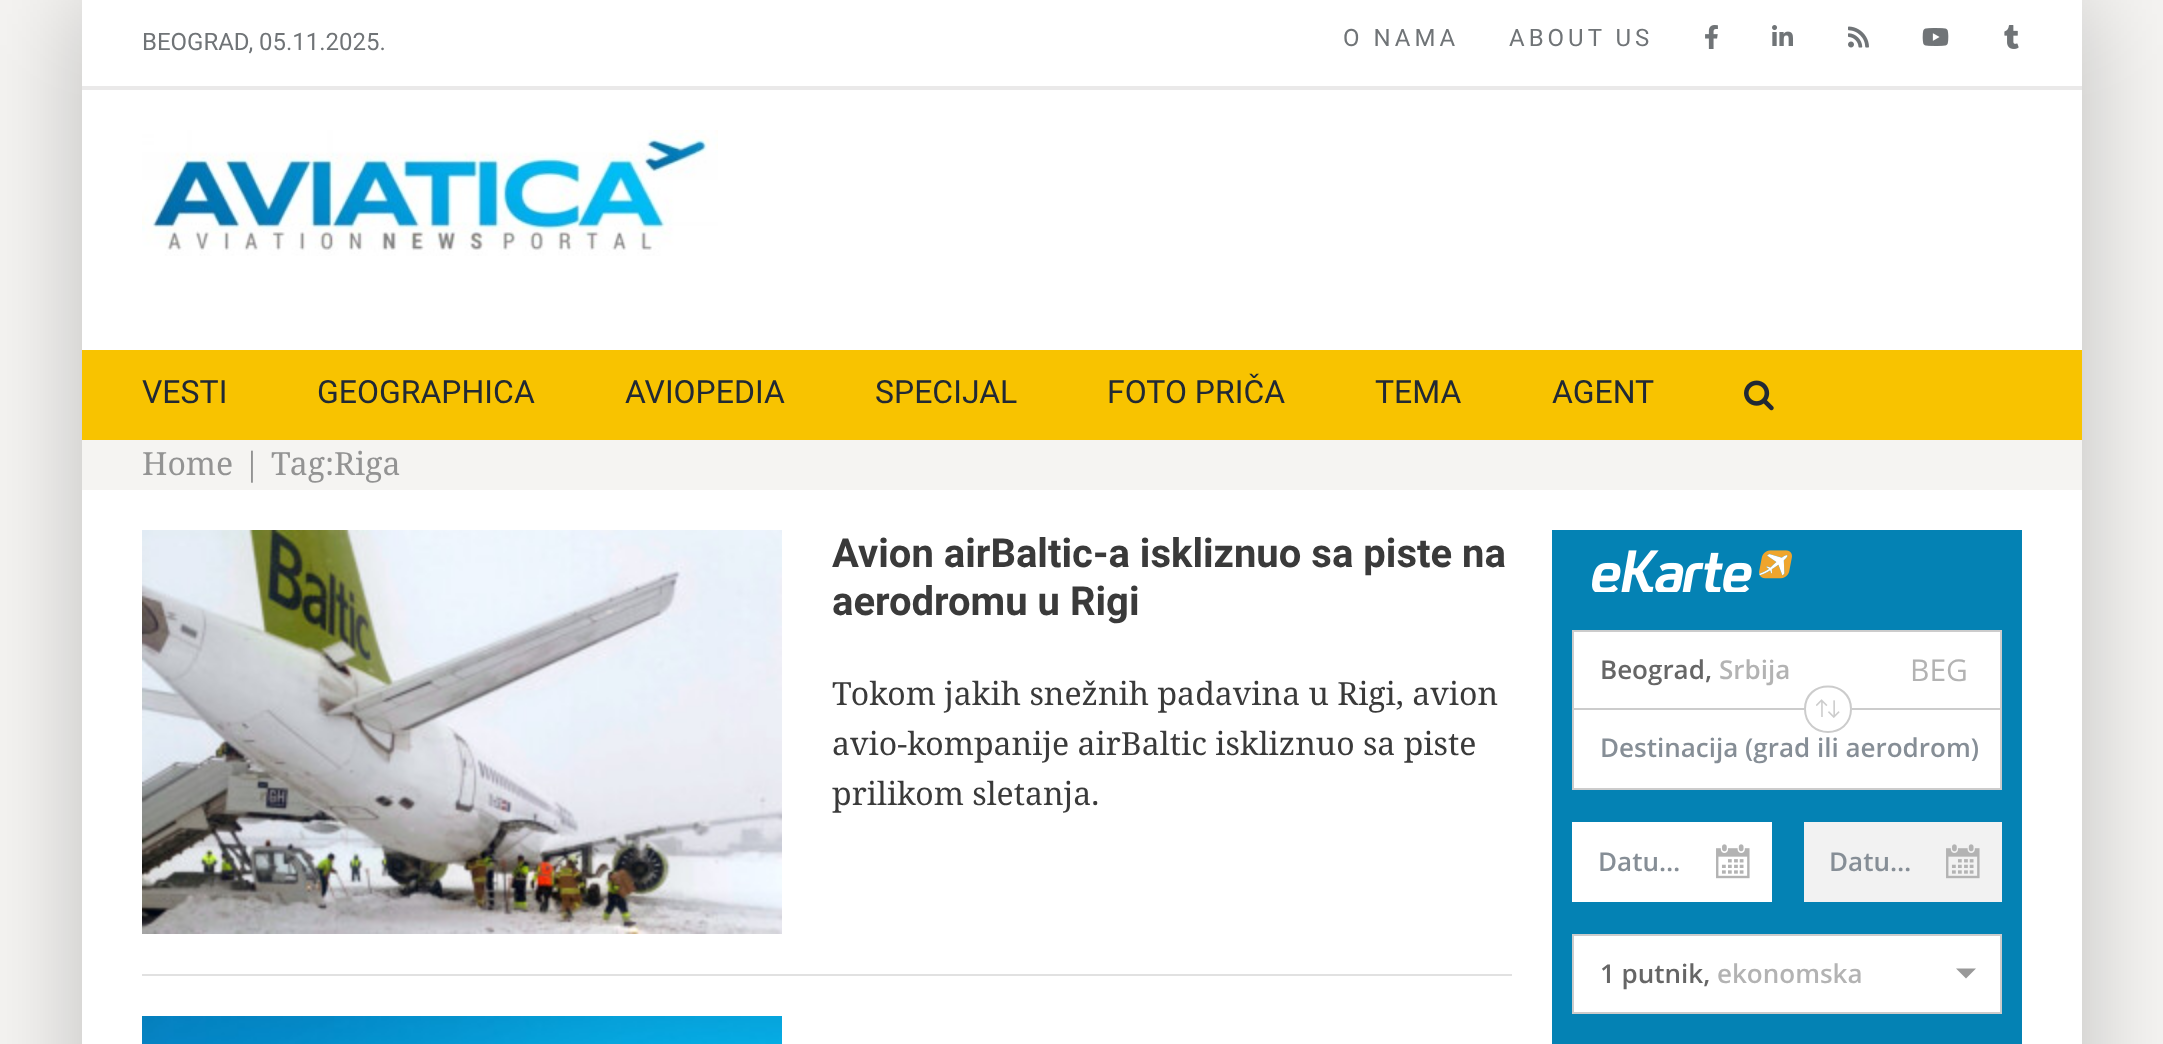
async function draw(canvas) {
  canvas.width = 2163;
  canvas.height = 1044;
  const ctx = canvas.getContext('2d');
  ctx.miterLimit = 4;
  ctx.fontKerning = 'normal';
  function label(s, x, y, font, color) {
    ctx.font = font;
    ctx.fillStyle = color;
    ctx.fillText(s, x, y);
  }
  function rect(x, y, w, h, color) {
    ctx.fillStyle = color;
    ctx.fillRect(x, y, w, h);
  }
  async function image(src, x, y, w, h) {
    const img = new Image();
    img.src = src;
    await img.decode();
    ctx.drawImage(img, x, y, w, h);
  }
  let path;

  rect(0, 0, 2163, 1044, '#f5f4f2');
  ctx.save();
  path = new Path2D('M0 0H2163V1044H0ZM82 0H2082V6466H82Z');
  ctx.clip(path, 'evenodd');
  ctx.fillStyle = '#00000038';
  ctx.filter = 'blur(50px)';
  ctx.beginPath();
  ctx.rect(80, -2, 2004, 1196);
  ctx.fill();
  ctx.filter = 'none';
  ctx.restore();
  rect(82, 0, 2000, 350, '#fff');
  rect(82, 86, 2000, 4, '#eae9e9');
  label('BEOGRAD, 05.11.2025.', 142, 50, '24px Roboto', '#707477');
  ctx.letterSpacing = '4px';
  label('O NAMA', 1343, 46, '24px Roboto', '#707477');
  label('ABOUT US', 1509, 46, '24px Roboto', '#707477');
  await image('assets/img1.png', 1705, 25, 13, 24);
  await image('assets/img2.png', 1772, 25, 21, 21);
  await image('assets/img3.png', 1848, 26, 21, 22);
  await image('assets/img4.png', 1922, 28, 27, 18);
  await image('assets/img5.png', 2004, 25, 15, 24);
  await image('assets/img6.png', 142, 130, 576, 126);
  rect(82, 350, 2000, 90, '#f8c300');
  ctx.letterSpacing = '0px';
  label('VESTI', 142, 403, '32px Roboto', '#212934');
  label('GEOGRAPHICA', 317, 403, '32px Roboto', '#212934');
  label('AVIOPEDIA', 625, 403, '32px Roboto', '#212934');
  label('SPECIJAL', 875, 403, '32px Roboto', '#212934');
  label('FOTO PRIČA', 1107, 403, '32px Roboto', '#212934');
  label('TEMA', 1375, 403, '32px Roboto', '#212934');
  label('AGENT', 1552, 403, '32px Roboto', '#212934');
  await image('assets/img7.png', 1744, 380, 30, 31);
  label('Home', 142, 475, '32px Noto Serif', '#939393');
  label('|', 243, 475, '32px Noto Serif', '#939393');
  label('Tag:Riga', 271, 475, '32px Noto Serif', '#939393');
  rect(82, 490, 2000, 554, '#fff');
  rect(142, 974, 1370, 2, '#e1e1e1');
  await image('assets/img8.png', 142, 530, 640, 404);
  label('Avion airBaltic-a iskliznuo sa piste na', 832, 567, 'bold 40px Roboto', '#3a3a3a');
  label('aerodromu u Rigi', 832, 615, 'bold 40px Roboto', '#3a3a3a');
  label('Tokom jakih snežnih padavina u Rigi, avion', 832, 705, '32px Noto Serif', '#3a3a3a');
  label('avio-kompanije airBaltic iskliznuo sa piste', 832, 755, '32px Noto Serif', '#3a3a3a');
  label('prilikom sletanja.', 832, 805, '32px Noto Serif', '#3a3a3a');
  await image('assets/img9.png', 142, 1016, 640, 28);
  rect(1552, 530, 470, 514, '#0482b4');
  await image('assets/img10.png', 1592, 550, 200, 42);
  ctx.fillStyle = '#fff';
  ctx.beginPath();
  ctx.rect(1573, 631, 428, 78);
  ctx.fill();
  ctx.strokeStyle = '#ccc';
  ctx.lineWidth = 2;
  ctx.stroke();
  label('Beograd,', 1600, 679, '600 26px Open Sans', '#666');
  label('Srbija', 1719, 679, '600 26px Open Sans', '#b3b3b3');
  label('BEG', 1910, 681, '30px Open Sans', '#b3b3b3');
  rect(1574, 710, 426, 78, '#fff');
  path = new Path2D('M1852 709C1852 741 1804 741 1804 709C1804 678 1852 678 1852 709Z');
  ctx.fill(path);
  path = new Path2D('M1851 709C1851 739.5 1805 739.5 1805 709C1805 679 1851 679 1851 709Z');
  ctx.stroke(path);
  await image('assets/img11.png', 1816, 699, 24, 19);
  rect(2000, 710, 2, 80, '#ccc');
  rect(1572, 788, 430, 2, '#ccc');
  rect(1572, 710, 2, 80, '#ccc');
  label('Destinacija (grad ili aerodrom)', 1600, 757, '600 26px Open Sans', '#868e96');
  rect(1572, 822, 200, 80, '#fff');
  label('Datu…', 1598, 871, '600 26px Open Sans', '#868e96');
  await image('assets/img12.png', 1716, 844, 34, 35);
  rect(1804, 822, 198, 80, '#f2f2f2');
  label('Datu…', 1829, 871, '600 26px Open Sans', '#868e96');
  await image('assets/img13.png', 1946, 844, 34, 35);
  ctx.fillStyle = '#fff';
  ctx.beginPath();
  ctx.rect(1573, 935, 428, 78);
  ctx.fill();
  ctx.stroke();
  label('1 putnik,', 1600, 983, '600 26px Open Sans', '#666');
  label('ekonomska', 1717, 983, '600 26px Open Sans', '#b3b3b3');
  ctx.fillStyle = '#999';
  path = new Path2D('M1976 968.5L1966 978.5L1956 968.5Z');
  ctx.fill(path);
}

draw(document.querySelector('canvas'));
